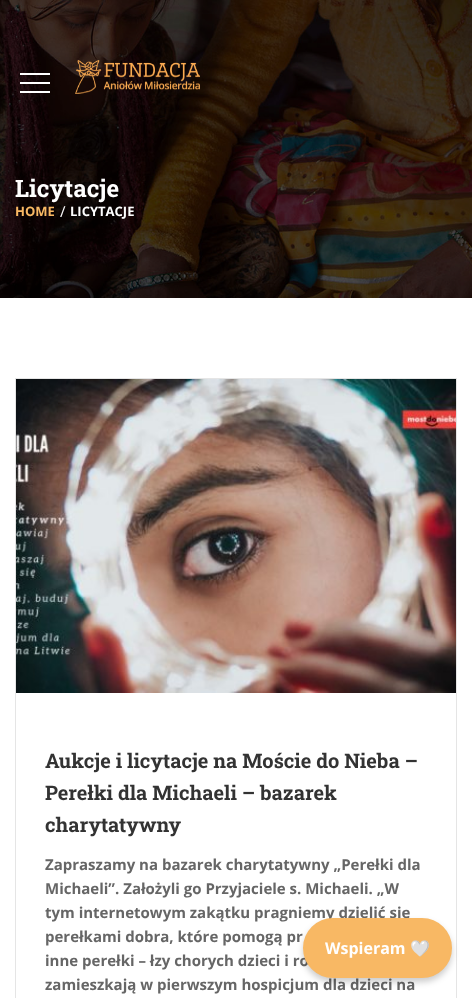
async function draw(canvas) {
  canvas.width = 472;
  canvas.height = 998;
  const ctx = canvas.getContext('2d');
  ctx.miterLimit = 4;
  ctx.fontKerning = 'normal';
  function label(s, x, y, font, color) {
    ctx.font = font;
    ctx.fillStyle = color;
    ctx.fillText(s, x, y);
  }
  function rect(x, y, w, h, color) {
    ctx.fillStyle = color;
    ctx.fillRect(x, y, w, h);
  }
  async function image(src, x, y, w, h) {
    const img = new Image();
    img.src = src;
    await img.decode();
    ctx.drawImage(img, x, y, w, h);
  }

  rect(0, 0, 472, 998, '#fff');
  await image('assets/img2.png', 0, 0, 472, 298);
  rect(20, 82, 30, 2, '#fff');
  rect(20, 73, 30, 2, '#fff');
  rect(20, 91, 30, 2, '#fff');
  await image('assets/img1.png', 75, 60, 125, 34);
  label('Licytacje', 15, 197, 'bold 24px Roboto Slab', '#fff');
  label('HOME', 15, 216, 'bold 13px Open Sans', '#f8b864');
  label('/', 60, 217, '15px Open Sans', '#fff');
  label('LICYTACJE', 70, 216, 'bold 13px Open Sans', '#fff');
  ctx.strokeStyle = '#e5e5e5';
  ctx.strokeRect(15.5, 378.5, 441, 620);
  await image('assets/img3.png', 16, 379, 440, 314);
  label('Aukcje i licytacje na Moście do Nieba –', 45, 768, 'bold 20px Roboto Slab', '#333');
  label('Perełki dla Michaeli – bazarek', 45, 800, 'bold 20px Roboto Slab', '#333');
  label('charytatywny', 45, 832, 'bold 20px Roboto Slab', '#333');
  label('Zapraszamy na bazarek charytatywny „Perełki dla', 45, 870, 'bold 15px Open Sans', '#666');
  label('Michaeli”. Założyli go Przyjaciele s. Michaeli. „W', 45, 894, 'bold 15px Open Sans', '#666');
  label('tym internetowym zakątku pragniemy dzielić się', 45, 918, 'bold 15px Open Sans', '#666');
  label('perełkami dobra, które pomogą pr', 45, 942, 'bold 15px Open Sans', '#666');
  label('inne perełki – łzy chorych dzieci i ro', 45, 966, 'bold 15px Open Sans', '#666');
  label('zamieszkają w pierwszym hospicjum dla dzieci na', 45, 990, 'bold 15px Open Sans', '#666');
  ctx.fillStyle = '#00000033';
  ctx.filter = 'blur(3px)';
  ctx.beginPath();
  ctx.roundRect(303, 922, 149, 60, 30);
  ctx.fill();
  ctx.filter = 'none';
  ctx.fillStyle = '#f8b864';
  ctx.beginPath();
  ctx.roundRect(304, 919, 147, 58, 29);
  ctx.fill();
  ctx.strokeStyle = '#f8b864';
  ctx.lineWidth = 2;
  ctx.stroke();
  label('Wspieram', 325, 954, 'bold 16px Open Sans', '#fff');
  label('🤍', 410, 954, 'bold 16px Noto Color Emoji', '#fff');
}

draw(document.querySelector('canvas'));
